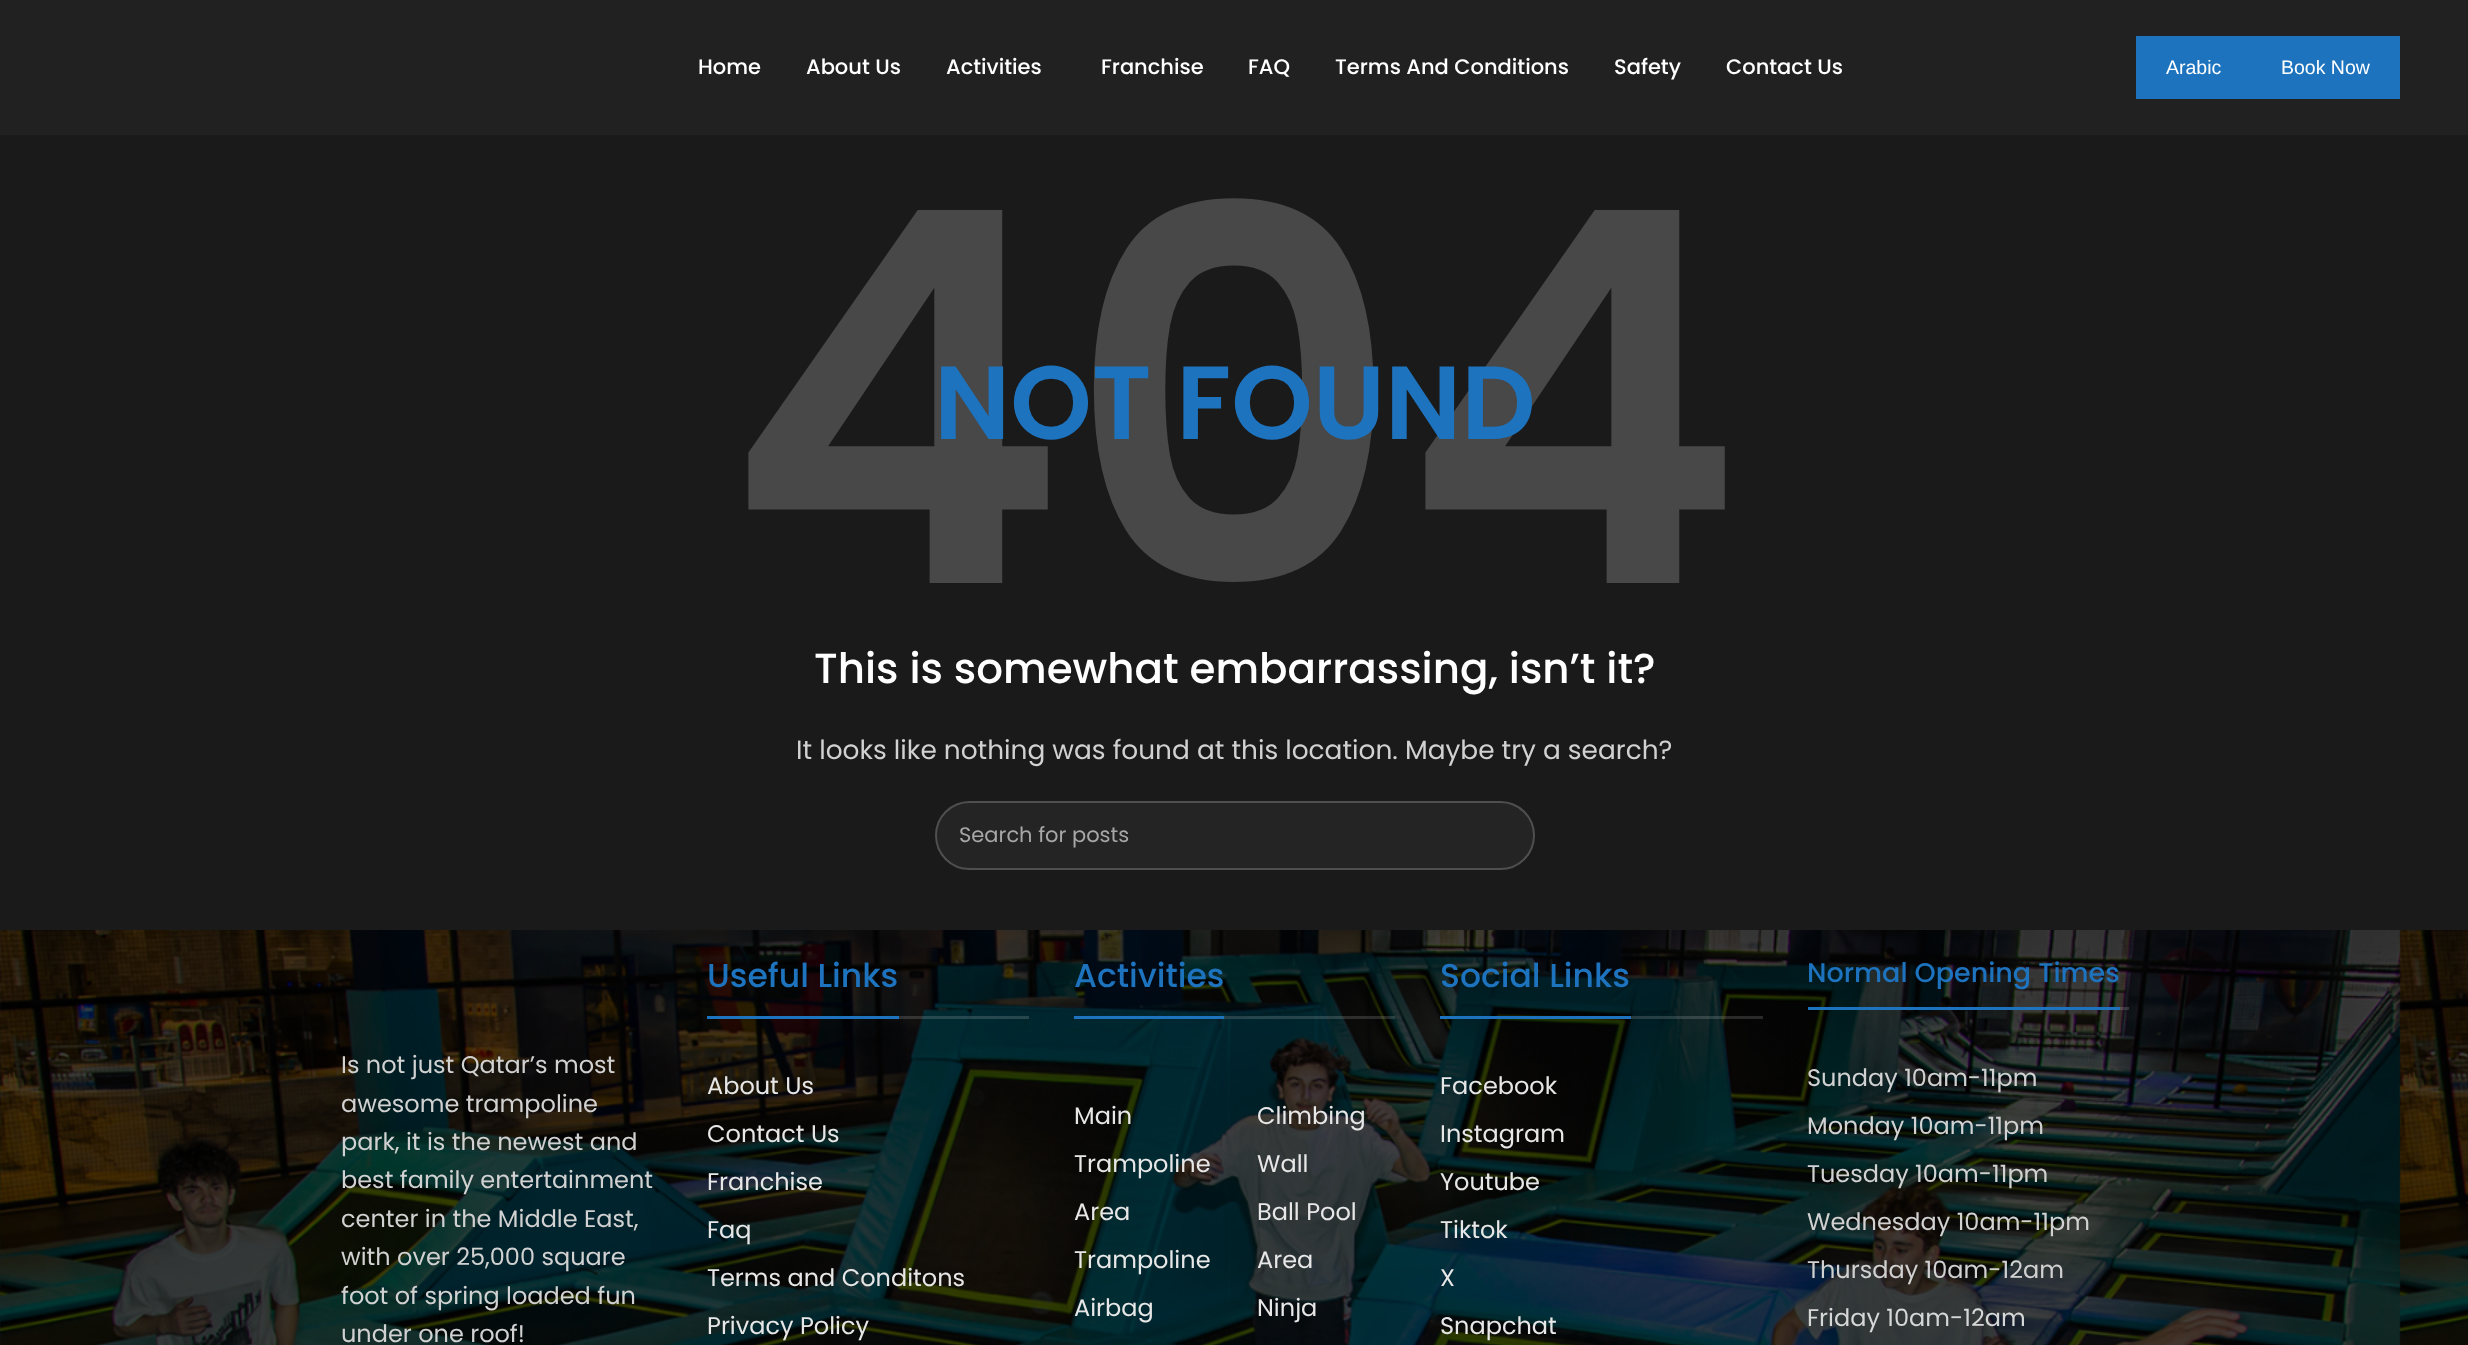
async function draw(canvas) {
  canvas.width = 2468;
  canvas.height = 1345;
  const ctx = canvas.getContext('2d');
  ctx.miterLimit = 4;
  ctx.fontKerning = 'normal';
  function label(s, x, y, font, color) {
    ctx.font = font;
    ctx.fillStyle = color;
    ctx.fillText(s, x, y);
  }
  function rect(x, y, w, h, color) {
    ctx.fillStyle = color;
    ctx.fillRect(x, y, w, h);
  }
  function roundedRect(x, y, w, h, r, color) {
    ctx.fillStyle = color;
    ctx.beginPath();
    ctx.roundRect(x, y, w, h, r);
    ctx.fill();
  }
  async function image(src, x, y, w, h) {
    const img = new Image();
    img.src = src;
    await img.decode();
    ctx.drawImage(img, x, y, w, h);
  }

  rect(0, 0, 2468, 1345, '#1a1a1a');
  rect(0, 0, 2468, 135, '#212121');
  label('Home', 698, 74, '500 21px Poppins', '#fff');
  label('About Us', 806, 74, '500 21px Poppins', '#fff');
  label('Activities', 946, 74, '500 21px Poppins', '#fff');
  label('Franchise', 1101, 74, '500 21px Poppins', '#fff');
  label('FAQ', 1248, 74, '500 21px Poppins', '#fff');
  label('Terms And Conditions', 1335, 74, '500 21px Poppins', '#fff');
  label('Safety', 1614, 74, '500 21px Poppins', '#fff');
  label('Contact Us', 1726, 74, '500 21px Poppins', '#fff');
  rect(2136, 36, 264, 63, '#1e73be');
  label('Arabic', 2166, 74, '19.5px Liberation Sans', '#fff');
  label('Book Now', 2281, 74, '19.5px Liberation Sans', '#fff');
  label('404', 724, 583, '600 518px Poppins', '#484848');
  label('NOT FOUND', 934, 439, '600 103.75px Poppins', '#1e73be');
  label('This is somewhat embarrassing, isn’t it?', 814, 683, '500 42px Poppins', '#fff');
  label('It looks like nothing was found at this location. Maybe try a search?', 796, 759, '26.4px Poppins', '#d1d1d1');
  roundedRect(935, 801, 600, 69, 34.5, '#242424');
  ctx.beginPath();
  ctx.roundRect(936, 802, 598, 67, 33.5);
  ctx.strokeStyle = '#ffffff33';
  ctx.lineWidth = 2;
  ctx.stroke();
  label('Search for posts', 959, 842, '21px Poppins', '#a7a7a7');
  await image('assets/img1.png', 0, 930, 2468, 415);
  label('Is not just Qatar’s most', 341, 1073, '24px Poppins', '#d1d1d1');
  label('awesome trampoline', 341, 1112, '24px Poppins', '#d1d1d1');
  label('park, it is the newest and', 341, 1150, '24px Poppins', '#d1d1d1');
  label('best family entertainment', 341, 1188, '24px Poppins', '#d1d1d1');
  label('center in the Middle East,', 341, 1227, '24px Poppins', '#d1d1d1');
  label('with over 25,000 square', 341, 1265, '24px Poppins', '#d1d1d1');
  label('foot of spring loaded fun', 341, 1304, '24px Poppins', '#d1d1d1');
  label('under one roof!', 341, 1342, '24px Poppins', '#d1d1d1');
  rect(899, 1016, 130, 3, '#ffffff26');
  rect(707, 1016, 192, 3, '#1e73be');
  label('Useful Links', 707, 987, '500 33px Poppins', '#1e73be');
  label('About Us', 707, 1094, '24px Poppins', '#e8e7e7');
  label('Contact Us', 707, 1142, '24px Poppins', '#e8e7e7');
  label('Franchise', 707, 1190, '24px Poppins', '#e8e7e7');
  label('Faq', 707, 1238, '24px Poppins', '#e8e7e7');
  label('Terms and Conditons', 707, 1286, '24px Poppins', '#e8e7e7');
  label('Privacy Policy', 707, 1334, '24px Poppins', '#e8e7e7');
  rect(1224, 1016, 171, 3, '#ffffff26');
  rect(1074, 1016, 150, 3, '#1e73be');
  label('Activities', 1074, 987, '500 33px Poppins', '#1e73be');
  label('Main', 1074, 1124, '24px Poppins', '#e8e7e7');
  label('Trampoline', 1074, 1172, '24px Poppins', '#e8e7e7');
  label('Area', 1074, 1220, '24px Poppins', '#e8e7e7');
  label('Trampoline', 1074, 1268, '24px Poppins', '#e8e7e7');
  label('Airbag', 1074, 1316, '24px Poppins', '#e8e7e7');
  label('Climbing', 1257, 1124, '24px Poppins', '#e8e7e7');
  label('Wall', 1257, 1172, '24px Poppins', '#e8e7e7');
  label('Ball Pool', 1257, 1220, '24px Poppins', '#e8e7e7');
  label('Area', 1257, 1268, '24px Poppins', '#e8e7e7');
  label('Ninja', 1257, 1316, '24px Poppins', '#e8e7e7');
  rect(1631, 1016, 132, 3, '#ffffff26');
  rect(1440, 1016, 191, 3, '#1e73be');
  label('Social Links', 1440, 987, '500 33px Poppins', '#1e73be');
  label('Facebook', 1440, 1094, '24px Poppins', '#e8e7e7');
  label('Instagram', 1440, 1142, '24px Poppins', '#e8e7e7');
  label('Youtube', 1440, 1190, '24px Poppins', '#e8e7e7');
  label('Tiktok', 1440, 1238, '24px Poppins', '#e8e7e7');
  label('X', 1440, 1286, '24px Poppins', '#e8e7e7');
  label('Snapchat', 1440, 1334, '24px Poppins', '#e8e7e7');
  rect(2120, 1007, 9, 3, '#ffffff26');
  rect(1808, 1007, 312, 3, '#1e73be');
  label('Normal Opening Times', 1807, 982, '500 27px Poppins', '#1e73be');
  label('Sunday 10am-11pm', 1807, 1086, '24px Poppins', '#d1d1d1');
  label('Monday 10am-11pm', 1807, 1134, '24px Poppins', '#d1d1d1');
  label('Tuesday 10am-11pm', 1807, 1182, '24px Poppins', '#d1d1d1');
  label('Wednesday 10am-11pm', 1807, 1230, '24px Poppins', '#d1d1d1');
  label('Thursday 10am-12am', 1807, 1278, '24px Poppins', '#d1d1d1');
  label('Friday 10am-12am', 1807, 1326, '24px Poppins', '#d6d7d7');
}

draw(document.querySelector('canvas'));
